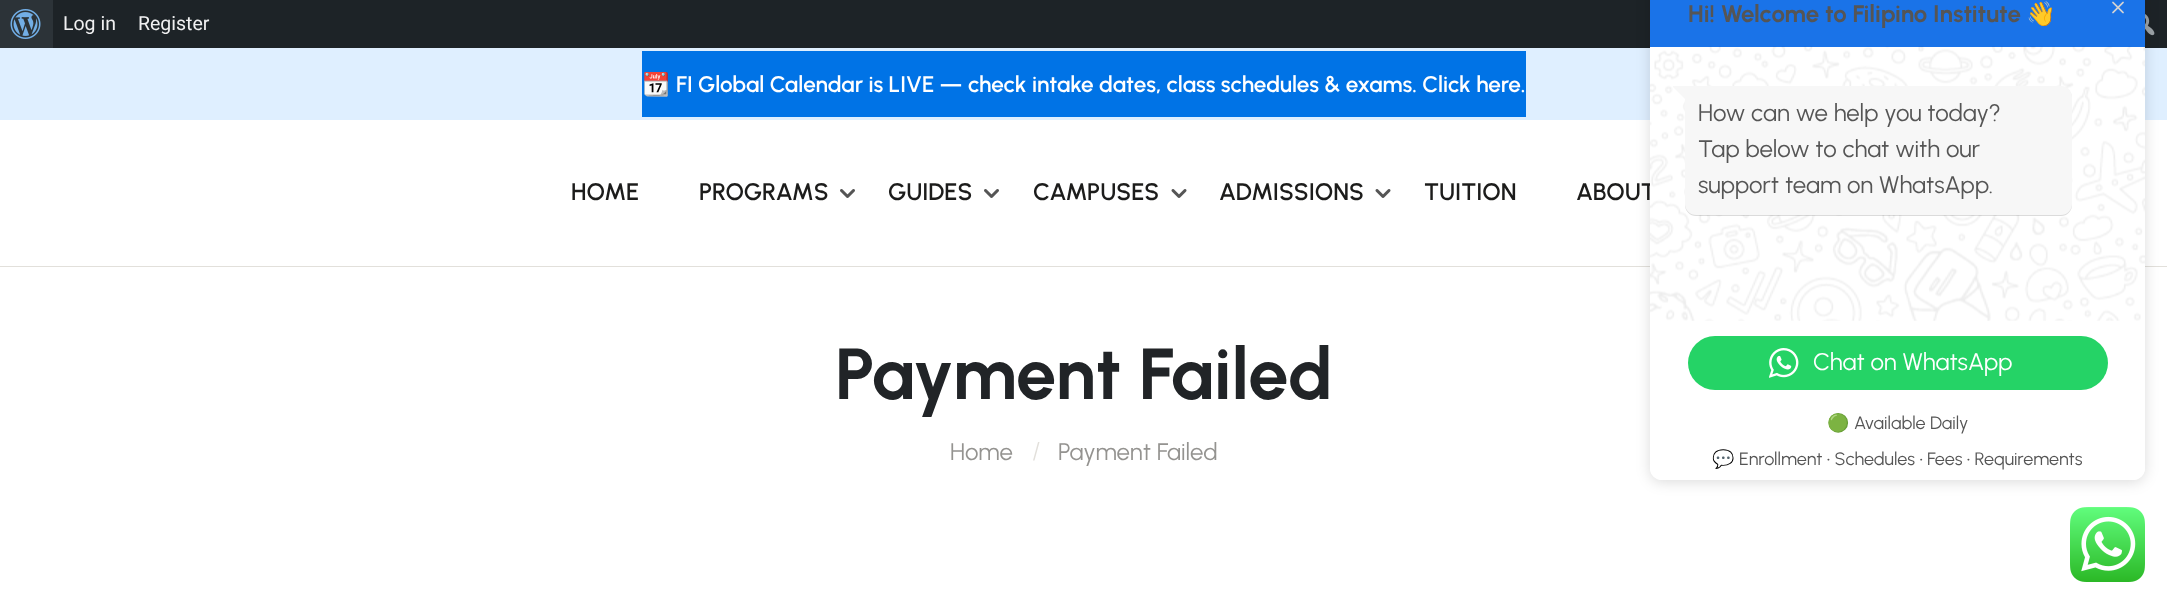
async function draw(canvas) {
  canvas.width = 2167;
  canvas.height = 604;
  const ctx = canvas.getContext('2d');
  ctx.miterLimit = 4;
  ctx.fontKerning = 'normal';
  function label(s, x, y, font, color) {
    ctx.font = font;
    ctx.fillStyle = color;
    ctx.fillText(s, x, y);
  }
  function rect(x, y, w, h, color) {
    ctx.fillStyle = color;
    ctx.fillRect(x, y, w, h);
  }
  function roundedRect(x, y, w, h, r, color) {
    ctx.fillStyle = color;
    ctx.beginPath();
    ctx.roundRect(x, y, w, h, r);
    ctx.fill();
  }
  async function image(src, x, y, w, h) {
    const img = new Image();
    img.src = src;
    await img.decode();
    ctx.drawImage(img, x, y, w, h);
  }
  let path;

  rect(0, 0, 2167, 604, '#fff');
  rect(53, 0, 2114, 48, '#1d2327');
  rect(0, 0, 53, 48, '#2c3338');
  await image('assets/img1.png', 10, 9, 31, 30);
  label('Log in', 63, 30, '19.5px Roboto', '#f0f0f1');
  label('Register', 138, 30, '19.5px Roboto', '#f0f0f1');
  await image('assets/img2.png', 2145, 14, 10, 22);
  rect(0, 48, 2167, 72, '#dfefff');
  rect(0, 266, 2167, 1, '#e2e0db');
  ctx.save();
  path = new Path2D('M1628 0H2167V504H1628ZM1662-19H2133C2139.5-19 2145-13.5 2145-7V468C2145 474.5 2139.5 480 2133 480H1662C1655.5 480 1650 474.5 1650 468V-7C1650-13.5 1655.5-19 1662-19Z');
  ctx.clip(path, 'evenodd');
  ctx.fillStyle = '#00000024';
  ctx.filter = 'blur(7px)';
  ctx.beginPath();
  ctx.roundRect(1650, -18, 495, 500, 12);
  ctx.fill();
  ctx.filter = 'none';
  ctx.restore();
  rect(1650, 0, 495, 47, '#1a73e8');
  label('Hi! Welcome to Filipino Institute', 1688, 22, 'bold 24px Urbanist', '#555');
  label('👋', 2026, 22, 'bold 24px Noto Color Emoji', '#555');
  label('ABOUT', 1576, 200, '600 24px Urbanist', '#1c1c1b');
  rect(1650, 47, 495, 220, '#fff');
  await image('assets/img3.png', 1650, 46, 495, 275);
  ctx.fillStyle = '#00000024';
  ctx.filter = 'blur(0.5px)';
  ctx.beginPath();
  ctx.roundRect(1685, 87, 387, 129, 11);
  ctx.fill();
  ctx.filter = 'none';
  ctx.fillStyle = '#f7f7f7';
  ctx.beginPath();
  ctx.roundRect(1685, 86, 387, 129, [0, 11, 11, 11]);
  ctx.fill();
  path = new Path2D('M1673 87L1685.5 99.5V86H1673Z');
  ctx.fill(path);
  label('How can we help you today?', 1698, 121, '24px Urbanist', '#555');
  label('Tap below to chat with our', 1698, 157, '24px Urbanist', '#555');
  label('support team on WhatsApp.', 1698, 193, '24px Urbanist', '#555');
  roundedRect(1688, 336, 420, 54, 27, '#25d366');
  await image('assets/img4.png', 1769, 348, 30, 30);
  label('Chat on WhatsApp', 1813, 370, '24px Urbanist', '#fff');
  ctx.beginPath();
  ctx.roundRect(1650, 402, 495, 78, [0, 0, 12, 12]);
  ctx.fill();
  label('🟢', 1827, 429, '18px Noto Color Emoji', '#555');
  label('Available Daily', 1854, 429, '18px Urbanist', '#555');
  label('💬', 1712, 465, '18px Noto Color Emoji', '#555');
  label('Enrollment • Schedules • Fees • Requirements', 1739, 465, '18px Urbanist', '#555');
  await image('assets/img5.png', 2112, 1, 12, 13);
  await image('assets/img6.png', 2070, 507, 75, 75);
  rect(642, 51, 884, 66, '#0073e6');
  label('📆', 642, 92, 'bold 22.5px Noto Color Emoji', '#fff');
  label('FI Global Calendar is LIVE — check intake dates, class schedules & exams. Click here.', 676, 92, '600 22.5px Urbanist', '#fff');
  label('HOME', 571, 200, '600 24px Urbanist', '#1c1c1b');
  label('PROGRAMS', 699, 200, '600 24px Urbanist', '#1c1c1b');
  await image('assets/img7.png', 840, 189, 15, 9);
  label('GUIDES', 888, 200, '600 24px Urbanist', '#1c1c1b');
  await image('assets/img7.png', 984, 189, 15, 9);
  label('CAMPUSES', 1033, 200, '600 24px Urbanist', '#1c1c1b');
  await image('assets/img8.png', 1171, 189, 16, 9);
  label('ADMISSIONS', 1219, 200, '600 24px Urbanist', '#1c1c1b');
  await image('assets/img8.png', 1375, 189, 16, 9);
  label('TUITION', 1424, 200, '600 24px Urbanist', '#1c1c1b');
  label('Payment Failed', 835, 399, 'bold 72px Urbanist', '#212427');
  label('Home', 950, 460, '24px Urbanist', '#949390');
  ctx.fillStyle = '#e2e0db';
  path = new Path2D('M1039.5 442L1034.5 460.5H1033L1038 442Z');
  ctx.fill(path);
  label('Payment Failed', 1058, 460, '24px Urbanist', '#949390');
}

draw(document.querySelector('canvas'));
